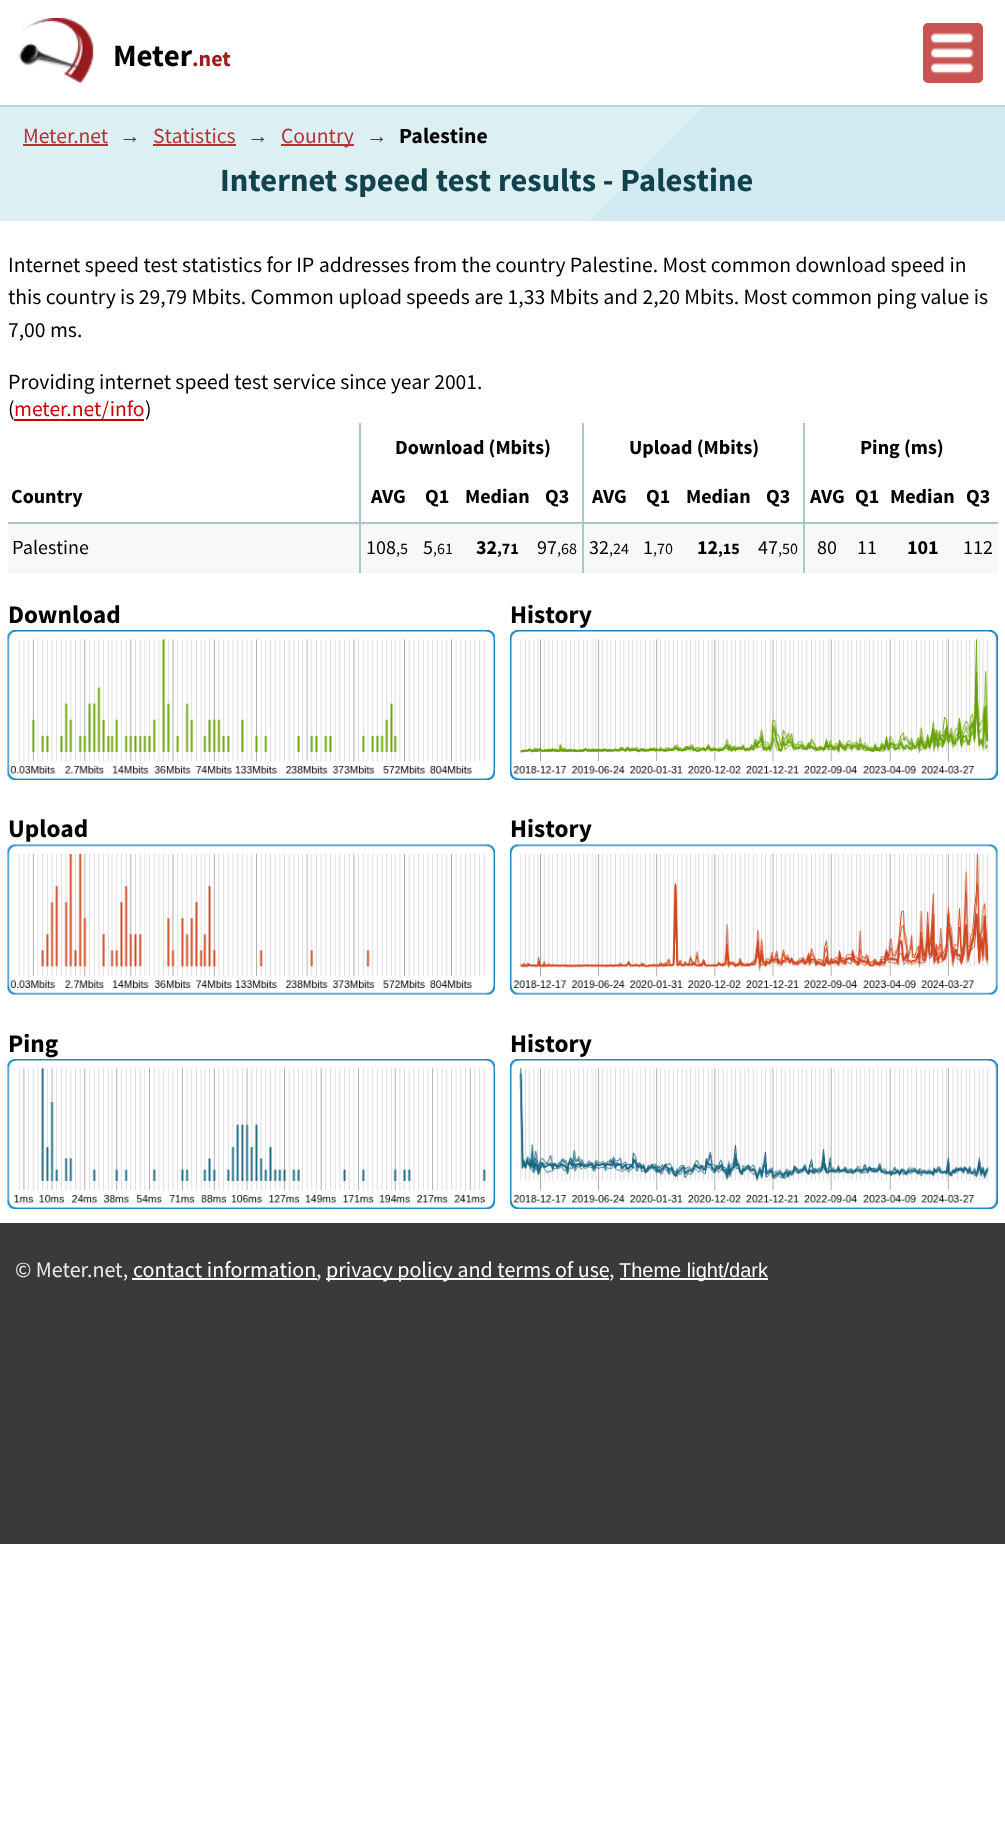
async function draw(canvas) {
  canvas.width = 1005;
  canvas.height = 1838;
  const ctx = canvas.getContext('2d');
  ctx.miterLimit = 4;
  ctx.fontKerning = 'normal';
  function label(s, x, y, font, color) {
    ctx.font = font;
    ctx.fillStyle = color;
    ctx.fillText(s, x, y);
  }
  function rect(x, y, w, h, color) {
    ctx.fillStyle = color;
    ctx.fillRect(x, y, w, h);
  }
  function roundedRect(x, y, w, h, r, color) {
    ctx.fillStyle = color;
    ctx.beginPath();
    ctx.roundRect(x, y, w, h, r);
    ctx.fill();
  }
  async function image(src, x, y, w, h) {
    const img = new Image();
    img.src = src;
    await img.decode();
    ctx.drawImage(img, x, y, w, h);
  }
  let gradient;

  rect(0, 0, 1005, 1838, '#fff');
  await image('assets/img1.png', 19, 18, 75, 65);
  label('Meter', 113, 66, 'bold 31px Source Sans Pro', '#000');
  label('.net', 192, 66, 'bold 22px Source Sans Pro', '#981b1e');
  roundedRect(923, 23, 60, 60, 5, '#c85352');
  await image('assets/img2.png', 930, 32, 44, 42);
  gradient = ctx.createLinearGradient(223, -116, 782, 443);
  gradient.addColorStop(0, '#dceff3');
  gradient.addColorStop(0.63, '#dceff3');
  gradient.addColorStop(0.63, '#d1eaf1');
  gradient.addColorStop(1, '#d1eaf1');
  ctx.fillStyle = gradient;
  ctx.fillRect(0, 107, 1005, 114);
  rect(0, 105, 1005, 2, '#bad2da');
  label('Meter.net', 23, 143, '21.6px Source Sans Pro', '#b33238');
  rect(23, 144, 85, 2, '#b33238');
  label('→', 119, 143, '21.6px Liberation Sans', '#444');
  label('Statistics', 153, 143, '21.6px Source Sans Pro', '#b33238');
  rect(153, 144, 83, 2, '#b33238');
  label('→', 247, 143, '21.6px Liberation Sans', '#444');
  rect(281, 144, 73, 2, '#b33238');
  label('Country', 281, 143, '21.6px Source Sans Pro', '#b33238');
  label('→', 366, 143, '21.6px Liberation Sans', '#444');
  label('Palestine', 399, 143, 'bold 21.6px Source Sans Pro', '#000');
  label('Internet speed test results - Palestine', 220, 191, 'bold 32.4px Source Sans Pro', '#12424c');
  label('Internet speed test statistics for IP addresses from the country Palestine. Most common download speed in', 8, 272, '21.6px Source Sans Pro', '#000');
  label('this country is 29,79 Mbits. Common upload speeds are 1,33 Mbits and 2,20 Mbits. Most common ping value is', 8, 304, '21.6px Source Sans Pro', '#000');
  label('7,00 ms.', 8, 337, '21.6px Source Sans Pro', '#000');
  label('Providing internet speed test service since year 2001.', 8, 389, '21.6px Source Sans Pro', '#000');
  label('(', 8, 416, '21.6px Source Sans Pro', '#000');
  rect(14, 419, 130, 2, '#c00');
  label('meter.net/info', 14, 416, '21.6px Source Sans Pro', '#c00');
  label(')', 145, 416, '21.6px Source Sans Pro', '#000');
  label('Download (Mbits)', 395, 454, 'bold 20px Source Sans Pro', '#000');
  label('Upload (Mbits)', 629, 454, 'bold 20px Source Sans Pro', '#000');
  label('Ping (ms)', 860, 454, 'bold 20px Source Sans Pro', '#000');
  rect(803, 522, 2, 51, '#aac8c8');
  rect(803, 522, 195, 2, '#aac8c8');
  rect(803, 423, 2, 101, '#aac8c8');
  rect(582, 522, 2, 51, '#aac8c8');
  rect(582, 522, 222, 2, '#aac8c8');
  rect(582, 423, 2, 101, '#aac8c8');
  rect(359, 522, 2, 51, '#aac8c8');
  rect(359, 522, 225, 2, '#aac8c8');
  rect(359, 423, 2, 101, '#aac8c8');
  rect(8, 522, 352, 2, '#aac8c8');
  label('Country', 11, 503, 'bold 20px Source Sans Pro', '#000');
  label('AVG', 371, 503, 'bold 20px Source Sans Pro', '#000');
  label('Q1', 425, 503, 'bold 20px Source Sans Pro', '#000');
  label('Median', 465, 503, 'bold 20px Source Sans Pro', '#000');
  label('Q3', 545, 503, 'bold 20px Source Sans Pro', '#000');
  label('AVG', 592, 503, 'bold 20px Source Sans Pro', '#000');
  label('Q1', 646, 503, 'bold 20px Source Sans Pro', '#000');
  label('Median', 686, 503, 'bold 20px Source Sans Pro', '#000');
  label('Q3', 766, 503, 'bold 20px Source Sans Pro', '#000');
  label('AVG', 810, 503, 'bold 20px Source Sans Pro', '#000');
  label('Q1', 855, 503, 'bold 20px Source Sans Pro', '#000');
  label('Median', 890, 503, 'bold 20px Source Sans Pro', '#000');
  label('Q3', 966, 503, 'bold 20px Source Sans Pro', '#000');
  rect(8, 524, 351, 49, '#f8f8f8');
  label('Palestine', 12, 554, '20px Source Sans Pro', '#000');
  rect(361, 524, 221, 49, '#f8f8f8');
  label('108', 366, 554, '20px Source Sans Pro', '#000');
  label(',5', 396, 554, '16px Source Sans Pro', '#000');
  label('5', 423, 554, '20px Source Sans Pro', '#000');
  label(',61', 433, 554, '16px Source Sans Pro', '#000');
  label('32', 476, 554, 'bold 20px Source Sans Pro', '#000');
  label(',71', 497, 554, 'bold 16px Source Sans Pro', '#000');
  label('97', 537, 554, '20px Source Sans Pro', '#000');
  label(',68', 557, 554, '16px Source Sans Pro', '#000');
  rect(584, 524, 219, 49, '#f8f8f8');
  label('32', 589, 554, '20px Source Sans Pro', '#000');
  label(',24', 609, 554, '16px Source Sans Pro', '#000');
  label('1', 643, 554, '20px Source Sans Pro', '#000');
  label(',70', 653, 554, '16px Source Sans Pro', '#000');
  label('12', 697, 554, 'bold 20px Source Sans Pro', '#000');
  label(',15', 718, 554, 'bold 16px Source Sans Pro', '#000');
  label('47', 758, 554, '20px Source Sans Pro', '#000');
  label(',50', 778, 554, '16px Source Sans Pro', '#000');
  rect(805, 524, 193, 49, '#f8f8f8');
  label('80', 817, 554, '20px Source Sans Pro', '#000');
  label('11', 857, 554, '20px Source Sans Pro', '#000');
  label('101', 907, 554, 'bold 20px Source Sans Pro', '#000');
  label('112', 963, 554, '20px Source Sans Pro', '#000');
  label('Download', 8, 623, 'bold 25.25px Source Sans Pro', '#000');
  await image('assets/img3.png', 7, 630, 488, 150);
  label('History', 510, 623, 'bold 25.25px Source Sans Pro', '#000');
  await image('assets/img4.png', 510, 630, 488, 150);
  label('Upload', 8, 837, 'bold 25.25px Source Sans Pro', '#000');
  await image('assets/img5.png', 7, 844, 488, 151);
  label('History', 510, 837, 'bold 25.25px Source Sans Pro', '#000');
  await image('assets/img6.png', 510, 844, 488, 151);
  label('Ping', 8, 1052, 'bold 25.25px Source Sans Pro', '#000');
  await image('assets/img7.png', 7, 1059, 488, 150);
  label('History', 510, 1052, 'bold 25.25px Source Sans Pro', '#000');
  await image('assets/img8.png', 510, 1059, 488, 150);
  rect(0, 1223, 1005, 321, '#3a3a3a');
  label('© Meter.net,', 15, 1277, '22px Source Sans Pro', '#e7ebec');
  label('contact information', 133, 1277, '22px Source Sans Pro', '#fff');
  rect(132, 1278, 185, 2, '#fff');
  label(',', 316, 1277, '22px Source Sans Pro', '#e7ebec');
  rect(326, 1278, 283, 2, '#fff');
  label('privacy policy and terms of use', 326, 1277, '22px Source Sans Pro', '#fff');
  label(',', 609, 1277, '22px Source Sans Pro', '#e7ebec');
  rect(620, 1278, 148, 2, '#fff');
  label('Theme light/dark', 619, 1277, '20px Liberation Sans', '#fff');
}

draw(document.querySelector('canvas'));
